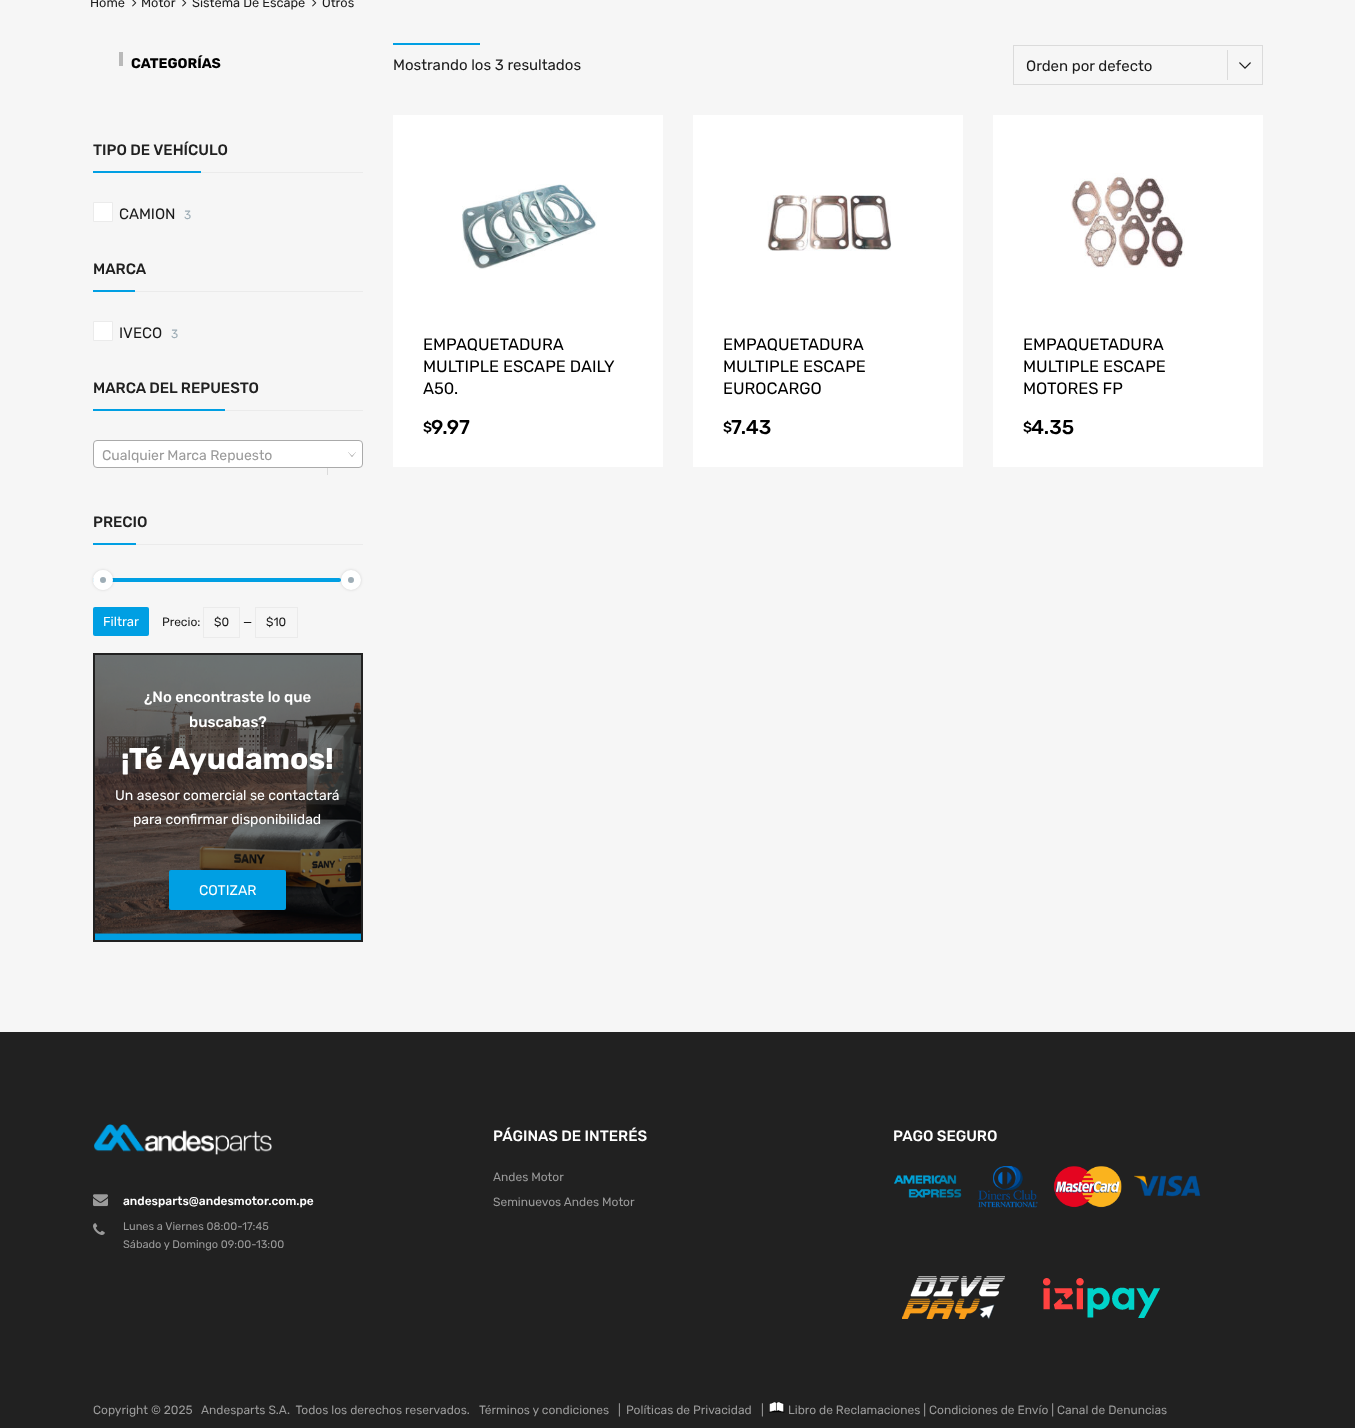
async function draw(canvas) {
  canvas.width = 1355;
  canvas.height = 1428;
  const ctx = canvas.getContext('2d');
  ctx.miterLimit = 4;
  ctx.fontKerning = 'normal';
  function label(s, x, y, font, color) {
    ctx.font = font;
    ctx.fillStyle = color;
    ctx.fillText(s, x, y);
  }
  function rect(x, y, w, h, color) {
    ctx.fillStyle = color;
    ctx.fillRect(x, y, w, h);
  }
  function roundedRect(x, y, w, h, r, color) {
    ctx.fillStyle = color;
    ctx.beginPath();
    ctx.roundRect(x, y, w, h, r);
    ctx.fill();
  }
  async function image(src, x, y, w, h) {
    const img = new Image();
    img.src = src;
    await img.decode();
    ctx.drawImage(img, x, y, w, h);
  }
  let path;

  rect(0, 0, 1355, 1428, '#f6f6f6');
  label('Home', 90, 7, '12.75px Rubik', '#212121');
  await image('assets/img1.png', 132, 0, 5, 7);
  label('Motor', 141, 7, '12.75px Rubik', '#212121');
  await image('assets/img1.png', 182, 0, 5, 7);
  label('Sistema De Escape', 192, 7, '12.75px Rubik', '#212121');
  await image('assets/img1.png', 312, 0, 5, 7);
  label('Otros', 322, 7, '12.75px Rubik', '#1b1b1b');
  rect(119, 52, 4, 14, '#b9b9b9');
  label('CATEGORÍAS', 131, 68, 'bold 14px Rubik', '#000');
  label('TIPO DE VEHÍCULO', 93, 155, '500 15px Rubik', '#212121');
  rect(93, 171, 108, 2, '#009fe3');
  rect(201, 172, 162, 1, '#ebebeb');
  ctx.fillStyle = '#fff';
  ctx.beginPath();
  ctx.rect(93.5, 202.5, 19, 19);
  ctx.fill();
  ctx.strokeStyle = '#ebebeb';
  ctx.stroke();
  label('CAMION', 119, 219, '15px Rubik', '#1b1b1b');
  label('3', 184, 219, '12px Rubik', '#9eadb6');
  label('MARCA', 93, 274, '500 15px Rubik', '#212121');
  rect(93, 290, 42, 2, '#009fe3');
  rect(135, 291, 228, 1, '#ebebeb');
  ctx.fillStyle = '#fff';
  ctx.beginPath();
  ctx.rect(93.5, 321.5, 19, 19);
  ctx.fill();
  ctx.stroke();
  label('IVECO', 119, 338, '15px Rubik', '#1b1b1b');
  label('3', 171, 338, '12px Rubik', '#9eadb6');
  label('MARCA DEL REPUESTO', 93, 393, '500 15px Rubik', '#212121');
  rect(93, 409, 132, 2, '#009fe3');
  rect(225, 410, 138, 1, '#ebebeb');
  ctx.fillStyle = '#fff';
  ctx.beginPath();
  ctx.roundRect(93.5, 440.5, 269, 27, 3.5);
  ctx.fill();
  ctx.strokeStyle = '#aaa';
  ctx.stroke();
  label('Cualquier Marca Repuesto', 102, 460, '14px Rubik', '#9a9a9a');
  ctx.fillStyle = '#888';
  path = new Path2D('M348 452H356L352 457Z');
  ctx.fill(path);
  ctx.fillStyle = '#fff';
  path = new Path2D('M346 450H358L352 456Z');
  ctx.fill(path);
  rect(327, 468, 1, 7, '#dbdbdb');
  label('PRECIO', 93, 527, '500 15px Rubik', '#212121');
  rect(93, 543, 43, 2, '#009fe3');
  rect(136, 544, 227, 1, '#ebebeb');
  roundedRect(93, 578, 248, 4, 2, '#009fe3');
  ctx.save();
  path = new Path2D('M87 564H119V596H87ZM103 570C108.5 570 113 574.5 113 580C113 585.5 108.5 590 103 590C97.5 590 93 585.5 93 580C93 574.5 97.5 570 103 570Z');
  ctx.clip(path, 'evenodd');
  ctx.fillStyle = '#00000026';
  ctx.filter = 'blur(1.5px)';
  ctx.beginPath();
  ctx.roundRect(93, 570, 20, 20, 10);
  ctx.fill();
  ctx.filter = 'none';
  ctx.restore();
  ctx.fillStyle = '#9eadb6';
  ctx.beginPath();
  ctx.arc(103, 580, 6.5, 0, 2 * Math.PI);
  ctx.fill();
  ctx.strokeStyle = '#fff';
  ctx.lineWidth = 7;
  ctx.stroke();
  ctx.fillStyle = '#00000026';
  ctx.filter = 'blur(1.5px)';
  ctx.beginPath();
  ctx.roundRect(341, 570, 20, 20, 10);
  ctx.fill();
  ctx.filter = 'none';
  ctx.fillStyle = '#9eadb6';
  ctx.beginPath();
  ctx.arc(351, 580, 6.5, 0, 2 * Math.PI);
  ctx.fill();
  ctx.stroke();
  roundedRect(93, 607, 56, 29, 2, '#009fe3');
  label('Filtrar', 103, 626, '13px Rubik', '#fff');
  label('Precio:', 162, 626, '12px Rubik', '#1b1b1b');
  ctx.strokeStyle = '#ebebeb';
  ctx.lineWidth = 1;
  ctx.strokeRect(203.5, 607.5, 36, 30);
  label('$0', 214, 626, '12px Rubik', '#1b1b1b');
  label('—', 243, 626, '12px Rubik', '#1b1b1b');
  ctx.strokeRect(255.5, 607.5, 42, 30);
  label('$10', 266, 626, '12px Rubik', '#1b1b1b');
  await image('assets/img2.png', 95, 655, 266, 285);
  ctx.strokeStyle = '#212121';
  ctx.lineWidth = 2;
  ctx.strokeRect(94, 654, 268, 287);
  label('¿No encontraste lo que', 144, 702, '500 15px Rubik', '#fff');
  label('buscabas?', 189, 727, '500 15px Rubik', '#fff');
  label('¡Té Ayudamos!', 121, 769, 'bold 30px Rubik', '#fff');
  label('Un asesor comercial se contactará', 115, 800, '14px Rubik', '#fff');
  label('para confirmar disponibilidad', 133, 824, '14px Rubik', '#fff');
  roundedRect(169, 870, 117, 40, 2, '#009fe3');
  label('COTIZAR', 199, 895, '14px Rubik', '#fff');
  rect(393, 43, 87, 2, '#009fe3');
  label('Mostrando los 3 resultados', 393, 70, '15px Rubik', '#1b1b1b');
  rect(1227, 50, 1, 30, '#dbdbdb');
  await image('assets/img3.png', 1239, 62, 12, 7);
  ctx.strokeStyle = '#dbdbdb';
  ctx.lineWidth = 1;
  ctx.strokeRect(1013.5, 45.5, 249, 39);
  label('Orden por defecto', 1026, 71, '15px Rubik', '#1b1b1b');
  rect(393, 115, 270, 352, '#fff');
  await image('assets/img4.png', 462, 184, 135, 86);
  label('EMPAQUETADURA', 423, 350, '16.5px Rubik', '#000');
  label('MULTIPLE ESCAPE DAILY', 423, 372, '16.5px Rubik', '#000');
  label('A50.', 423, 394, '16.5px Rubik', '#000');
  label('$', 423, 432, '500 14px Rubik', '#000');
  label('9.97', 431, 434, '500 20px Rubik', '#000');
  rect(693, 115, 270, 352, '#fff');
  await image('assets/img5.png', 767, 195, 125, 56);
  label('EMPAQUETADURA', 723, 350, '16.5px Rubik', '#000');
  label('MULTIPLE ESCAPE', 723, 372, '16.5px Rubik', '#000');
  label('EUROCARGO', 723, 394, '16.5px Rubik', '#000');
  label('$', 723, 432, '500 14px Rubik', '#000');
  label('7.43', 731, 434, '500 20px Rubik', '#000');
  rect(993, 115, 270, 352, '#fff');
  await image('assets/img6.png', 1070, 173, 115, 95);
  label('EMPAQUETADURA', 1023, 350, '16.5px Rubik', '#000');
  label('MULTIPLE ESCAPE', 1023, 372, '16.5px Rubik', '#000');
  label('MOTORES FP', 1023, 394, '16.5px Rubik', '#000');
  label('$', 1023, 432, '500 14px Rubik', '#000');
  label('4.35', 1031, 434, '500 20px Rubik', '#000');
  rect(0, 1032, 1355, 396, '#212121');
  label('PÁGINAS DE INTERÉS', 493, 1141, '500 15px Rubik', '#fff');
  label('Andes Motor', 493, 1181, '12px Rubik', '#9a9a9a');
  label('Seminuevos Andes Motor', 493, 1206, '12px Rubik', '#9a9a9a');
  label('PAGO SEGURO', 893, 1141, '500 15px Rubik', '#fff');
  await image('assets/img7.png', 893, 1175, 69, 23);
  await image('assets/img8.png', 978, 1166, 60, 42);
  await image('assets/img9.png', 1053, 1166, 69, 42);
  await image('assets/img10.png', 1134, 1175, 67, 22);
  await image('assets/img11.png', 902, 1276, 258, 43);
  await image('assets/img12.png', 94, 1124, 178, 31);
  await image('assets/img13.png', 93, 1194, 15, 13);
  label('andesparts@andesmotor.com.pe', 123, 1205, '500 12px Rubik', '#fff');
  await image('assets/img14.png', 93, 1223, 12, 12);
  label('Lunes a Viernes 08:00-17:45', 123, 1230, '11px Rubik', '#9a9a9a');
  label('Sábado y Domingo 09:00-13:00', 123, 1248, '11px Rubik', '#9a9a9a');
  label('Copyright © 2025', 93, 1414, '12px Rubik', '#9a9a9a');
  label('Andesparts S.A.  Todos los derechos reservados.', 201, 1414, '12px Rubik', '#9a9a9a');
  label('Términos y condiciones', 479, 1414, '12px Rubik', '#9a9a9a');
  label('|', 618, 1414, '12px Rubik', '#9a9a9a');
  label('Políticas de Privacidad', 626, 1414, '12px Rubik', '#9a9a9a');
  label('|', 761, 1414, '12px Rubik', '#9a9a9a');
  await image('assets/img15.png', 769, 1402, 16, 11);
  label('Libro de Reclamaciones | Condiciones de Envío | Canal de Denuncias', 788, 1414, '12px Rubik', '#9a9a9a');
}

draw(document.querySelector('canvas'));
